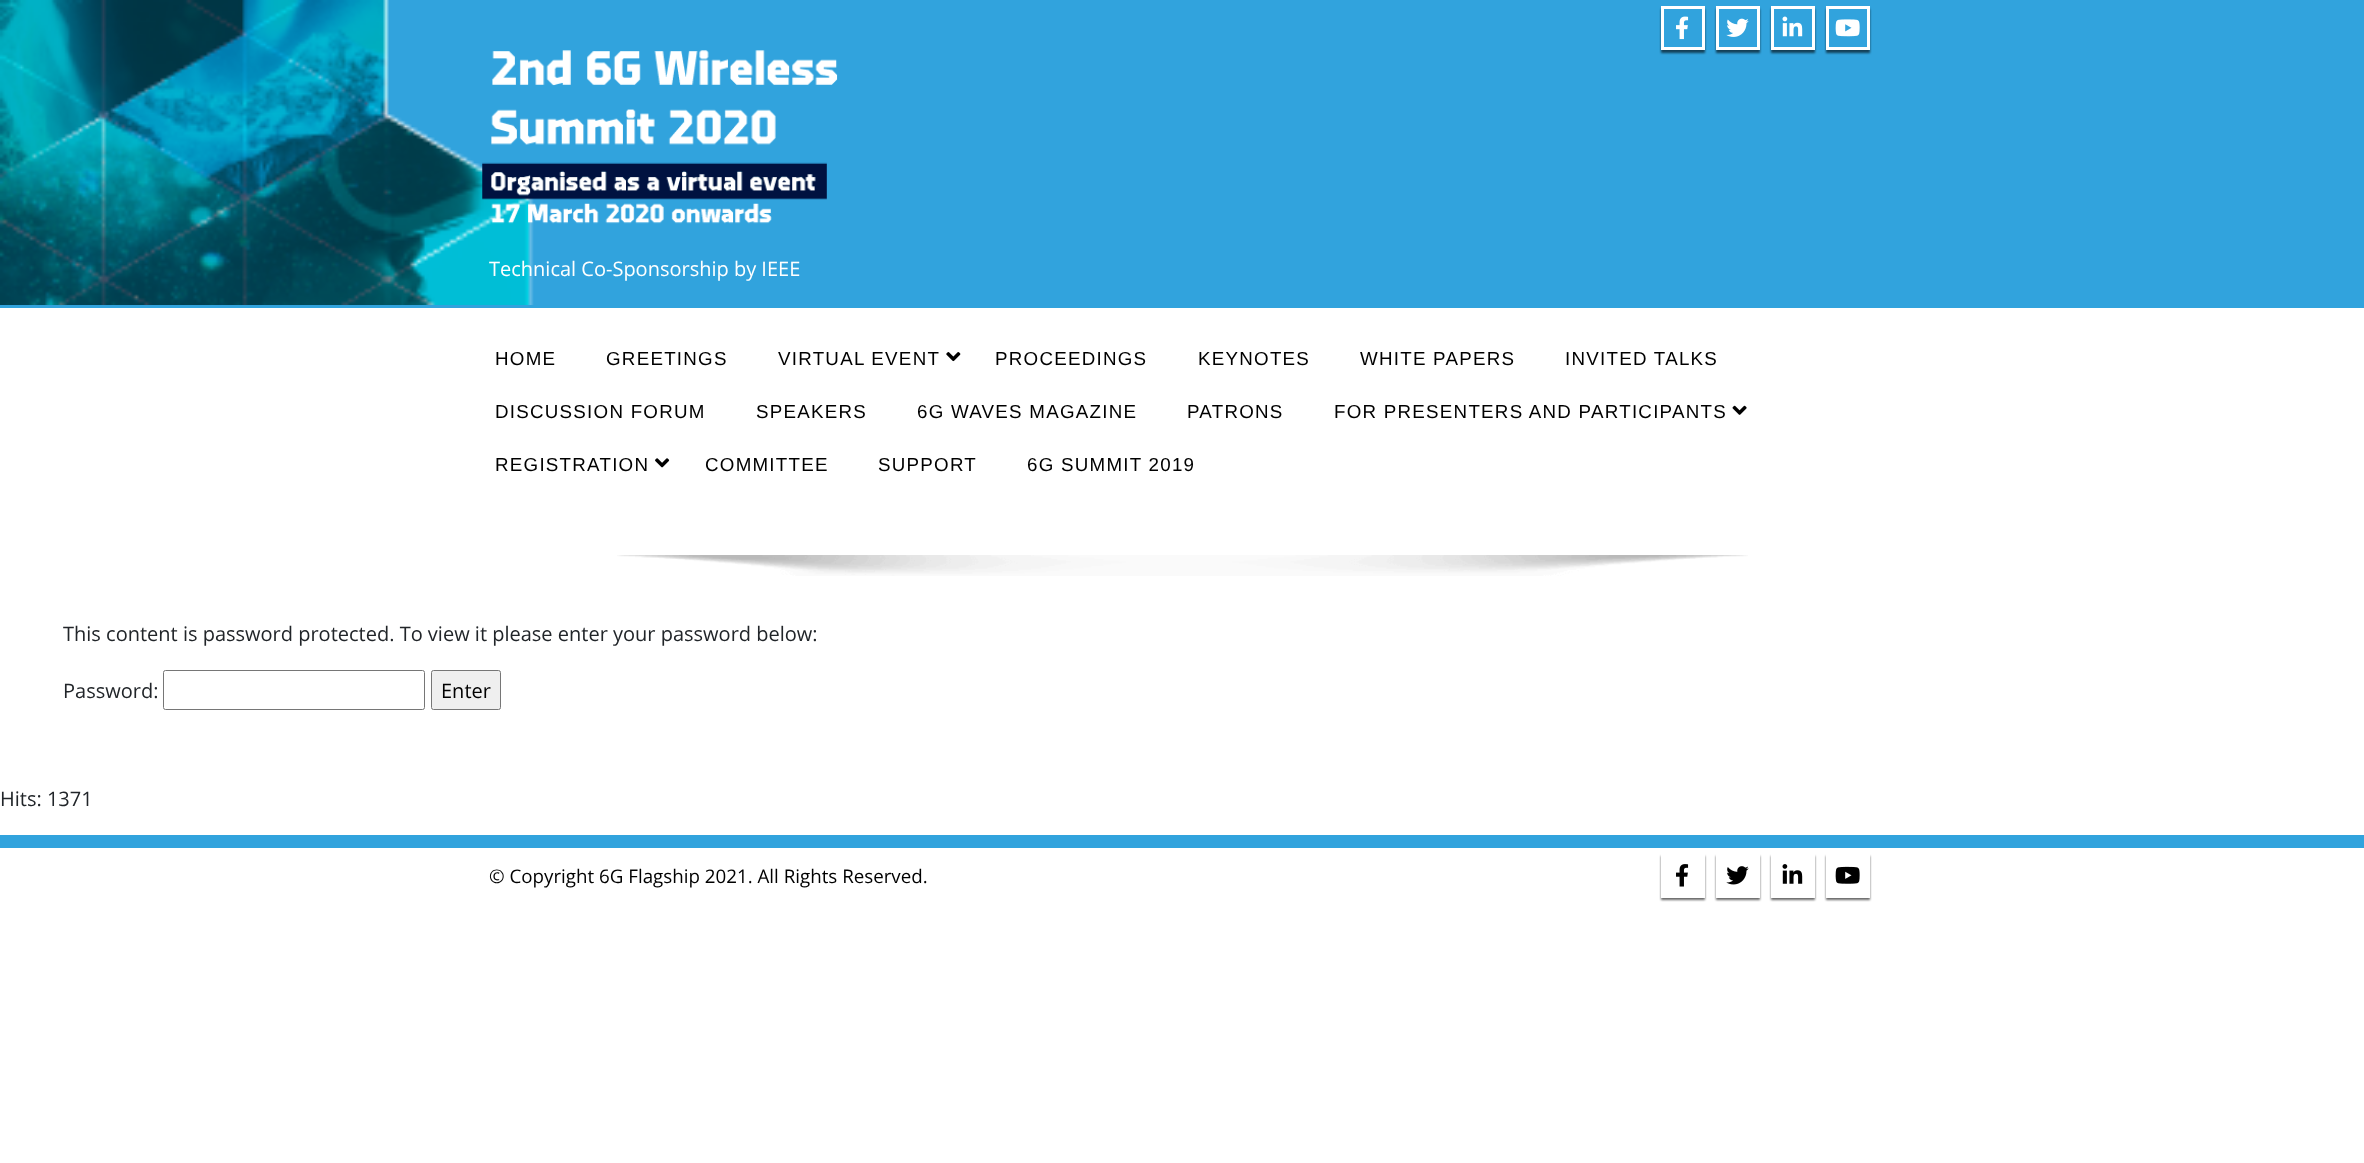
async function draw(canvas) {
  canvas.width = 2364;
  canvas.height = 1163;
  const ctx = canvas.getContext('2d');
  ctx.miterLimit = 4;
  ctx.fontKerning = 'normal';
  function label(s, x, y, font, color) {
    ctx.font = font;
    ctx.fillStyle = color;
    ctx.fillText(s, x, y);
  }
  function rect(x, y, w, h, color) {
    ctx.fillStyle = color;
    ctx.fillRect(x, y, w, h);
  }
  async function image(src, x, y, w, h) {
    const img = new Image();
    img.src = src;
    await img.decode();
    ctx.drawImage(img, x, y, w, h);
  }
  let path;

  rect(0, 0, 2364, 1163, '#fff');
  rect(386, 0, 1978, 305, '#31a3dd');
  await image('assets/img1.png', 0, 0, 534, 305);
  ctx.save();
  path = new Path2D('M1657 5H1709V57H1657ZM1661 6H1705V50H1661Z');
  ctx.clip(path, 'evenodd');
  ctx.fillStyle = '#00000099';
  ctx.filter = 'blur(1px)';
  ctx.beginPath();
  ctx.rect(1661, 9, 44, 44);
  ctx.fill();
  ctx.filter = 'none';
  ctx.restore();
  ctx.strokeStyle = '#fff';
  ctx.lineWidth = 3;
  ctx.strokeRect(1662.5, 7.5, 41, 41);
  await image('assets/img2.png', 1676, 16, 13, 24);
  ctx.save();
  path = new Path2D('M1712 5H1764V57H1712ZM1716 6H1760V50H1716Z');
  ctx.clip(path, 'evenodd');
  ctx.fillStyle = '#00000099';
  ctx.filter = 'blur(1px)';
  ctx.beginPath();
  ctx.rect(1716, 9, 44, 44);
  ctx.fill();
  ctx.filter = 'none';
  ctx.restore();
  ctx.strokeRect(1717.5, 7.5, 41, 41);
  await image('assets/img3.png', 1726, 18, 23, 19);
  ctx.save();
  path = new Path2D('M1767 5H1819V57H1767ZM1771 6H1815V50H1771Z');
  ctx.clip(path, 'evenodd');
  ctx.fillStyle = '#00000099';
  ctx.filter = 'blur(1px)';
  ctx.beginPath();
  ctx.rect(1771, 9, 44, 44);
  ctx.fill();
  ctx.filter = 'none';
  ctx.restore();
  ctx.strokeRect(1772.5, 7.5, 41, 41);
  await image('assets/img4.png', 1782, 16, 21, 21);
  ctx.save();
  path = new Path2D('M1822 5H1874V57H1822ZM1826 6H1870V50H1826Z');
  ctx.clip(path, 'evenodd');
  ctx.fillStyle = '#00000099';
  ctx.filter = 'blur(1px)';
  ctx.beginPath();
  ctx.rect(1826, 9, 44, 44);
  ctx.fill();
  ctx.filter = 'none';
  ctx.restore();
  ctx.strokeRect(1827.5, 7.5, 41, 41);
  await image('assets/img5.png', 1835, 19, 25, 18);
  await image('assets/img6.png', 482, 50, 356, 174);
  label('Technical Co-Sponsorship by IEEE', 489, 276, '20px Open Sans', '#fff');
  rect(0, 305, 2364, 3, '#31a3dd');
  ctx.letterSpacing = '1.25px';
  label('HOME', 495, 365, '18.75px Liberation Sans', '#000');
  label('GREETINGS', 606, 365, '18.75px Liberation Sans', '#000');
  label('VIRTUAL EVENT', 778, 365, '18.75px Liberation Sans', '#000');
  await image('assets/img7.png', 946, 352, 15, 10);
  label('PROCEEDINGS', 995, 365, '18.75px Liberation Sans', '#000');
  label('KEYNOTES', 1198, 365, '18.75px Liberation Sans', '#000');
  label('WHITE PAPERS', 1360, 365, '18.75px Liberation Sans', '#000');
  label('INVITED TALKS', 1565, 365, '18.75px Liberation Sans', '#000');
  label('DISCUSSION FORUM', 495, 418, '18.75px Liberation Sans', '#000');
  label('SPEAKERS', 756, 418, '18.75px Liberation Sans', '#000');
  label('6G WAVES MAGAZINE', 917, 418, '18.75px Liberation Sans', '#000');
  label('PATRONS', 1187, 418, '18.75px Liberation Sans', '#000');
  label('FOR PRESENTERS AND PARTICIPANTS', 1334, 418, '18.75px Liberation Sans', '#000');
  await image('assets/img8.png', 1732, 405, 15, 10);
  label('REGISTRATION', 495, 471, '18.75px Liberation Sans', '#000');
  await image('assets/img9.png', 655, 458, 15, 10);
  label('COMMITTEE', 705, 471, '18.75px Liberation Sans', '#000');
  label('SUPPORT', 878, 471, '18.75px Liberation Sans', '#000');
  label('6G SUMMIT 2019', 1027, 471, '18.75px Liberation Sans', '#000');
  await image('assets/img10.png', 617, 555, 1131, 21);
  ctx.letterSpacing = '0px';
  label('This content is password protected. To view it please enter your password below:', 63, 641, '20px Open Sans', '#212529');
  label('Password:', 63, 698, '20px Open Sans', '#212529');
  ctx.beginPath();
  ctx.roundRect(163.5, 670.5, 261, 39, 2);
  ctx.strokeStyle = '#767676';
  ctx.lineWidth = 1;
  ctx.stroke();
  ctx.fillStyle = '#efefef';
  ctx.beginPath();
  ctx.roundRect(431.5, 670.5, 69, 39, 2);
  ctx.fill();
  ctx.stroke();
  label('Enter', 441, 698, '20px Open Sans', '#000');
  label('Hits: 1371', 0, 806, '20px Open Sans', '#212529');
  rect(0, 835, 2364, 13, '#31a3dd');
  label('© Copyright 6G Flagship 2021. All Rights Reserved.', 489, 883, '18.75px Open Sans', '#000');
  ctx.save();
  path = new Path2D('M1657 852H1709V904H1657ZM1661 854H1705V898H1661Z');
  ctx.clip(path, 'evenodd');
  ctx.fillStyle = '#00000099';
  ctx.filter = 'blur(1px)';
  ctx.beginPath();
  ctx.rect(1661, 856, 44, 44);
  ctx.fill();
  ctx.filter = 'none';
  ctx.restore();
  ctx.strokeStyle = '#fff';
  ctx.lineWidth = 3;
  ctx.strokeRect(1662.5, 855.5, 41, 41);
  await image('assets/img11.png', 1676, 864, 13, 23);
  ctx.save();
  path = new Path2D('M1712 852H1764V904H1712ZM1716 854H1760V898H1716Z');
  ctx.clip(path, 'evenodd');
  ctx.fillStyle = '#00000099';
  ctx.filter = 'blur(1px)';
  ctx.beginPath();
  ctx.rect(1716, 856, 44, 44);
  ctx.fill();
  ctx.filter = 'none';
  ctx.restore();
  ctx.strokeRect(1717.5, 855.5, 41, 41);
  await image('assets/img12.png', 1726, 866, 23, 19);
  ctx.save();
  path = new Path2D('M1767 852H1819V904H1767ZM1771 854H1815V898H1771Z');
  ctx.clip(path, 'evenodd');
  ctx.fillStyle = '#00000099';
  ctx.filter = 'blur(1px)';
  ctx.beginPath();
  ctx.rect(1771, 856, 44, 44);
  ctx.fill();
  ctx.filter = 'none';
  ctx.restore();
  ctx.strokeRect(1772.5, 855.5, 41, 41);
  await image('assets/img13.png', 1782, 864, 21, 20);
  ctx.save();
  path = new Path2D('M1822 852H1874V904H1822ZM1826 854H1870V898H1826Z');
  ctx.clip(path, 'evenodd');
  ctx.fillStyle = '#00000099';
  ctx.filter = 'blur(1px)';
  ctx.beginPath();
  ctx.rect(1826, 856, 44, 44);
  ctx.fill();
  ctx.filter = 'none';
  ctx.restore();
  ctx.strokeRect(1827.5, 855.5, 41, 41);
  await image('assets/img14.png', 1835, 866, 25, 18);
}

draw(document.querySelector('canvas'));
